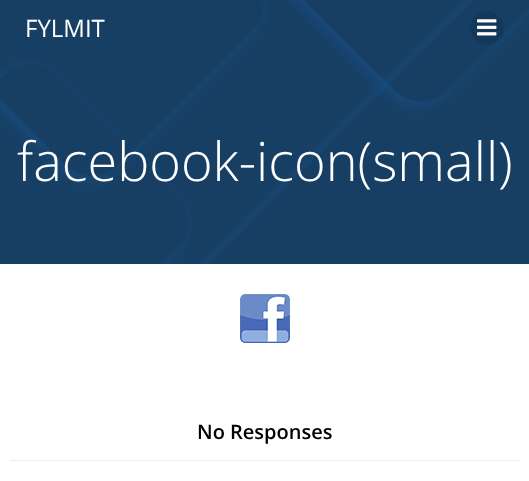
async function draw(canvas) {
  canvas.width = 529;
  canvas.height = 481;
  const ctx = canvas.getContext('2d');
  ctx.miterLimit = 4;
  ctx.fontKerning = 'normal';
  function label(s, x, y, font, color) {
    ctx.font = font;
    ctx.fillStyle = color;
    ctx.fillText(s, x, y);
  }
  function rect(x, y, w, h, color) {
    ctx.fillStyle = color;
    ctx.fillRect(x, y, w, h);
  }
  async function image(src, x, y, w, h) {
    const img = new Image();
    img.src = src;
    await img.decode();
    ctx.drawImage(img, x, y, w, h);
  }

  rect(0, 0, 529, 481, '#fff');
  rect(0, 0, 529, 264, '#173f64');
  await image('assets/img2.png', 0, 0, 529, 264);
  label('FYLMIT', 25, 37, '24px Open Sans', '#fff');
  ctx.fillStyle = '#0000001a';
  ctx.beginPath();
  ctx.arc(487, 28, 17, 0, 2 * Math.PI);
  ctx.fill();
  await image('assets/img1.png', 477, 19, 20, 17);
  label('facebook-icon(small)', 17, 181, '300 54px Open Sans', '#fff');
  await image('assets/img3.png', 240, 294, 50, 49);
  label('No Responses', 197, 439, '600 20px Open Sans', '#000');
  rect(10, 460, 509, 1, '#eee');
}

draw(document.querySelector('canvas'));
